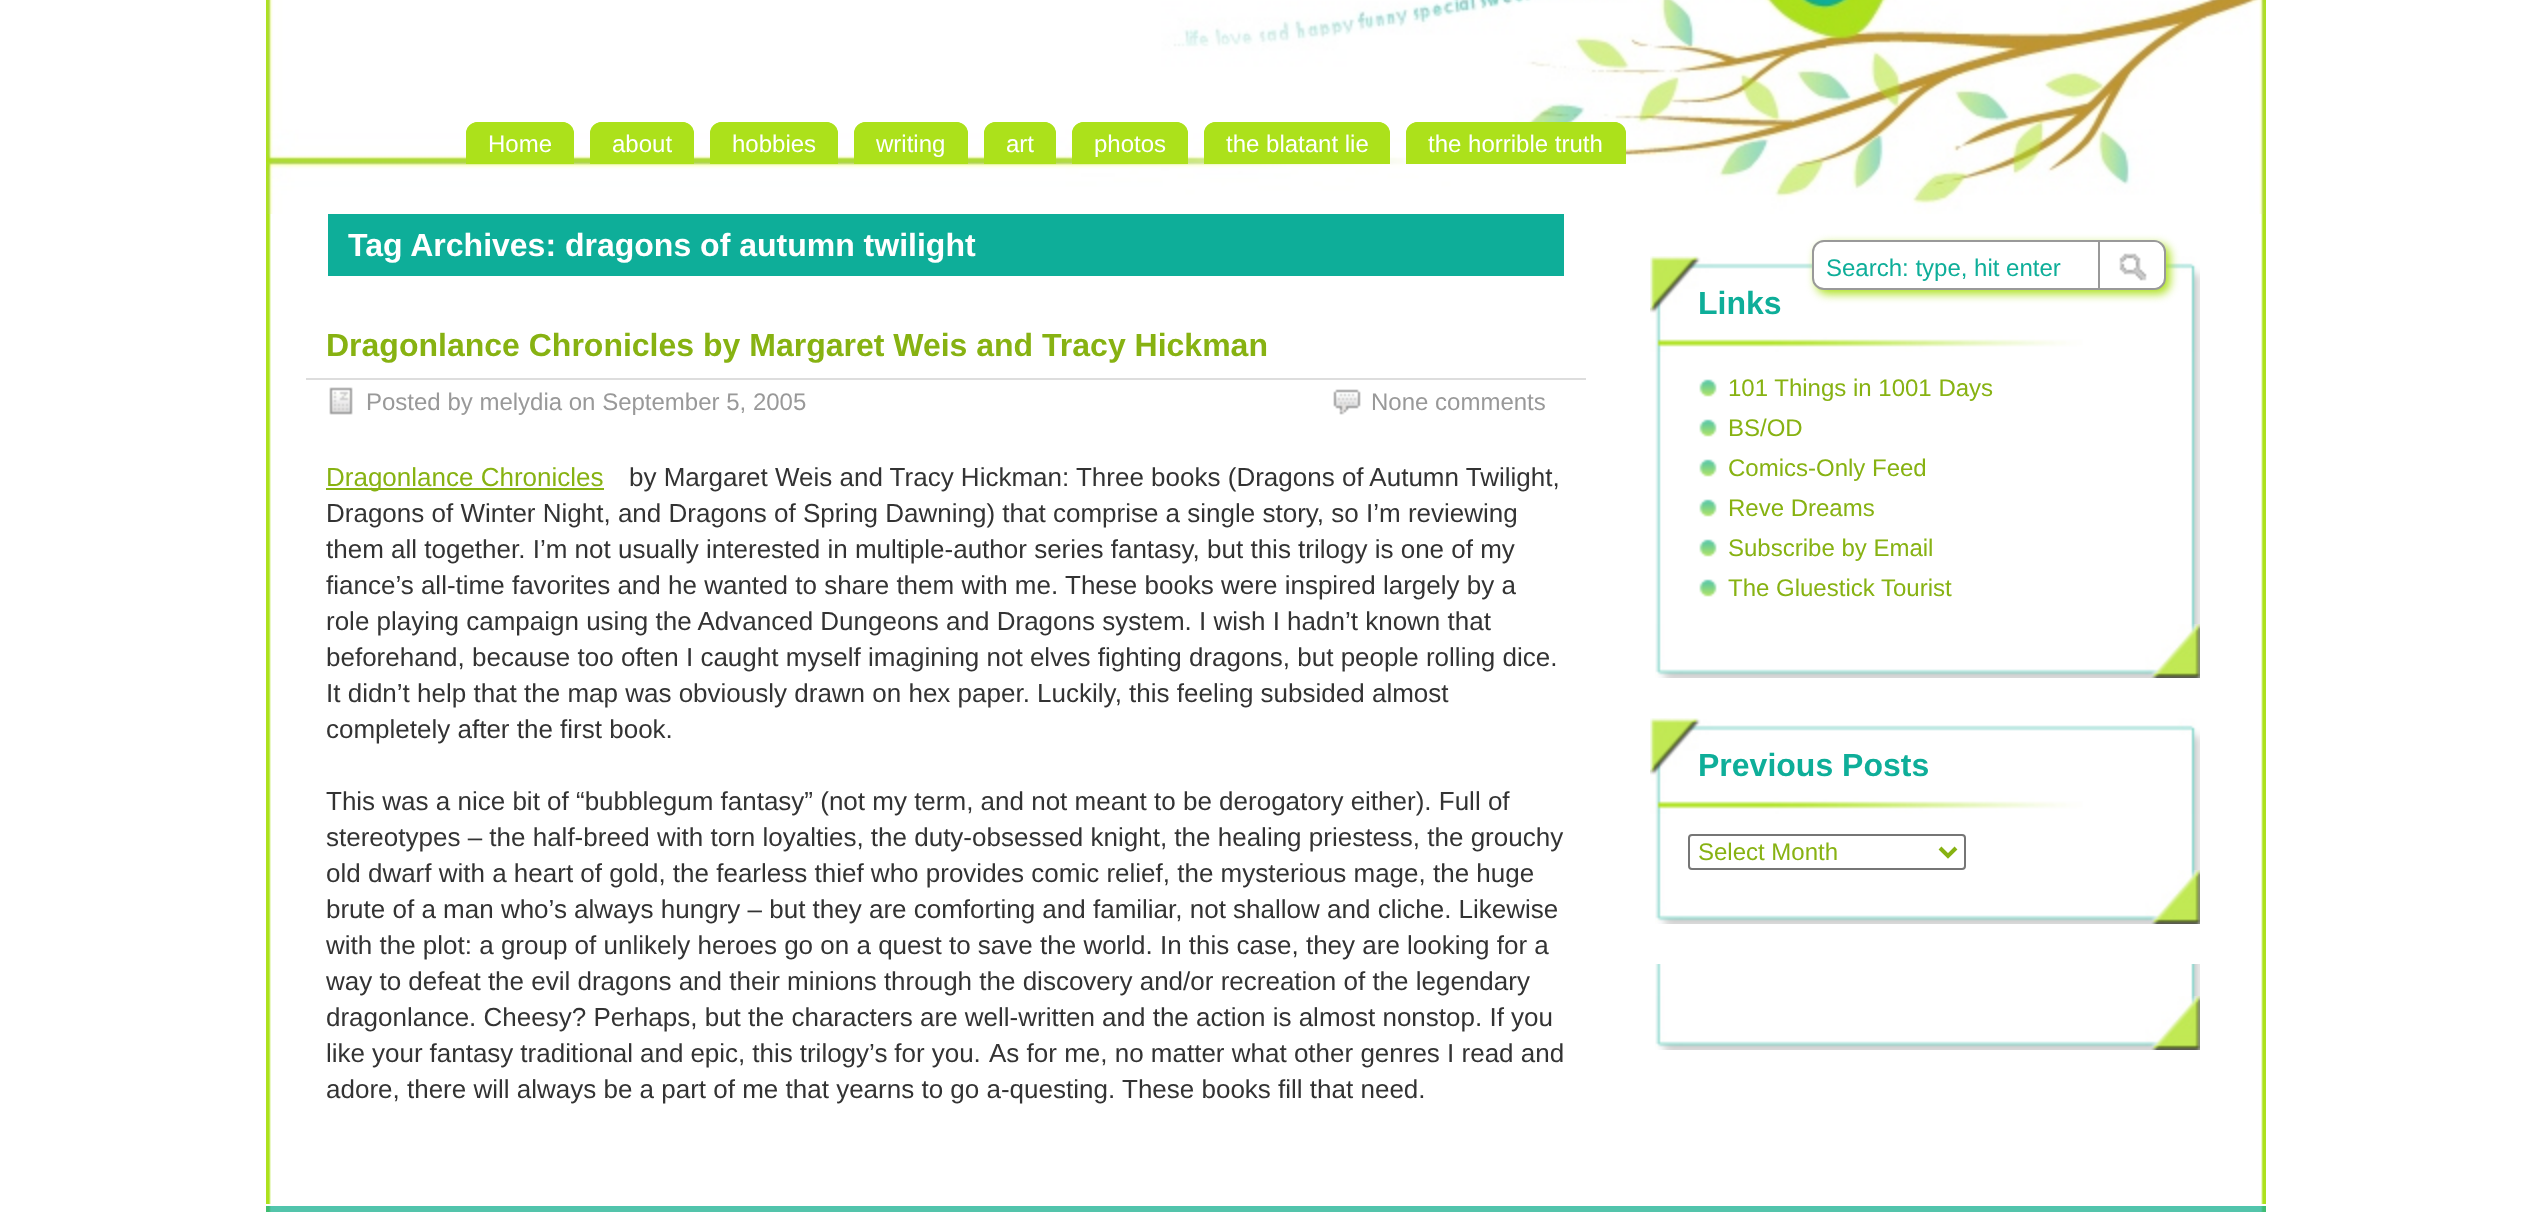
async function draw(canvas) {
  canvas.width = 2532;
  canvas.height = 1212;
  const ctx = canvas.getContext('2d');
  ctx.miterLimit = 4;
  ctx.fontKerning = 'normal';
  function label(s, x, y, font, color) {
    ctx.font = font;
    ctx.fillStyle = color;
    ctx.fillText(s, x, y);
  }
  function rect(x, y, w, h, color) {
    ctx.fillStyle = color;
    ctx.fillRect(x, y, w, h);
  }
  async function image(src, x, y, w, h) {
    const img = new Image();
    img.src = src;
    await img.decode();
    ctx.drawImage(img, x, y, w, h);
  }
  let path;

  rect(0, 0, 2532, 1212, '#fff');
  await image('assets/img1.png', 266, 214, 2000, 990);
  await image('assets/img2.png', 266, 0, 2000, 214);
  ctx.fillStyle = '#ace11b';
  ctx.beginPath();
  ctx.roundRect(466, 122, 108, 42, [12, 12, 0, 0]);
  ctx.fill();
  path = new Path2D('M478 122H562C569 122 574 127 574 134V164H466V134C466 127 471 122 478 122ZM478 124H562C568 124 572 128 572 134V164H468V134C468 128 472 124 478 124Z');
  ctx.fill(path, 'evenodd');
  label('Home', 488, 152, '24px Liberation Sans', '#fff');
  ctx.fillStyle = '#ace11b';
  ctx.beginPath();
  ctx.roundRect(590, 122, 104, 42, [12, 12, 0, 0]);
  ctx.fill();
  path = new Path2D('M602 122H682C689 122 694 127 694 134V164H590V134C590 127 595 122 602 122ZM602 124H682C688 124 692 128 692 134V164H592V134C592 128 596 124 602 124Z');
  ctx.fill(path, 'evenodd');
  label('about', 612, 152, '24px Liberation Sans', '#fff');
  ctx.fillStyle = '#ace11b';
  ctx.beginPath();
  ctx.roundRect(710, 122, 128, 42, [12, 12, 0, 0]);
  ctx.fill();
  path = new Path2D('M722 122H826C833 122 838 127 838 134V164H710V134C710 127 715 122 722 122ZM722 124H826C832 124 836 128 836 134V164H712V134C712 128 716 124 722 124Z');
  ctx.fill(path, 'evenodd');
  label('hobbies', 732, 152, '24px Liberation Sans', '#fff');
  ctx.fillStyle = '#ace11b';
  ctx.beginPath();
  ctx.roundRect(854, 122, 114, 42, [12, 12, 0, 0]);
  ctx.fill();
  path = new Path2D('M866 122H956C963 122 968 127 968 134V164H854V134C854 127 859 122 866 122ZM866 124H956C962 124 966 128 966 134V164H856V134C856 128 860 124 866 124Z');
  ctx.fill(path, 'evenodd');
  label('writing', 876, 152, '24px Liberation Sans', '#fff');
  ctx.fillStyle = '#ace11b';
  ctx.beginPath();
  ctx.roundRect(984, 122, 72, 42, [12, 12, 0, 0]);
  ctx.fill();
  path = new Path2D('M996 122H1044C1051 122 1056 127 1056 134V164H984V134C984 127 989 122 996 122ZM996 124H1044C1050 124 1054 128 1054 134V164H986V134C986 128 990 124 996 124Z');
  ctx.fill(path, 'evenodd');
  label('art', 1006, 152, '24px Liberation Sans', '#fff');
  ctx.fillStyle = '#ace11b';
  ctx.beginPath();
  ctx.roundRect(1072, 122, 116, 42, [12, 12, 0, 0]);
  ctx.fill();
  path = new Path2D('M1084 122H1176C1183 122 1188 127 1188 134V164H1072V134C1072 127 1077 122 1084 122ZM1084 124H1176C1182 124 1186 128 1186 134V164H1074V134C1074 128 1078 124 1084 124Z');
  ctx.fill(path, 'evenodd');
  label('photos', 1094, 152, '24px Liberation Sans', '#fff');
  ctx.fillStyle = '#ace11b';
  ctx.beginPath();
  ctx.roundRect(1204, 122, 186, 42, [12, 12, 0, 0]);
  ctx.fill();
  path = new Path2D('M1216 122H1378C1385 122 1390 127 1390 134V164H1204V134C1204 127 1209 122 1216 122ZM1216 124H1378C1384 124 1388 128 1388 134V164H1206V134C1206 128 1210 124 1216 124Z');
  ctx.fill(path, 'evenodd');
  label('the blatant lie', 1226, 152, '24px Liberation Sans', '#fff');
  ctx.fillStyle = '#ace11b';
  ctx.beginPath();
  ctx.roundRect(1406, 122, 220, 42, [12, 12, 0, 0]);
  ctx.fill();
  path = new Path2D('M1418 122H1614C1621 122 1626 127 1626 134V164H1406V134C1406 127 1411 122 1418 122ZM1418 124H1614C1620 124 1624 128 1624 134V164H1408V134C1408 128 1412 124 1418 124Z');
  ctx.fill(path, 'evenodd');
  label('the horrible truth', 1428, 152, '24px Liberation Sans', '#fff');
  await image('assets/img6.png', 1650, 256, 550, 96);
  ctx.fillStyle = '#ace11b';
  ctx.filter = 'blur(5px)';
  ctx.beginPath();
  ctx.roundRect(1816, 244, 354, 50, 12);
  ctx.fill();
  ctx.filter = 'none';
  ctx.fillStyle = '#fff';
  ctx.beginPath();
  ctx.roundRect(1813, 241, 352, 48, 11);
  ctx.fill();
  ctx.strokeStyle = '#999';
  ctx.lineWidth = 2;
  ctx.stroke();
  label('Search: type, hit enter', 1826, 276, '24px Liberation Sans', '#0eae99');
  ctx.save();
  ctx.beginPath();
  ctx.roundRect(1814, 242, 350, 46, 10);
  ctx.clip();
  rect(2100, 242, 60, 46, '#fff');
  ctx.restore();
  await image('assets/img3.png', 2119, 253, 28, 28);
  rect(2098, 242, 2, 46, '#999');
  rect(328, 214, 1236, 62, '#0eae99');
  label('Tag Archives: dragons of autumn twilight', 348, 256, 'bold 32px Liberation Sans', '#fff');
  label('Dragonlance Chronicles by Margaret Weis and Tracy Hickman', 326, 356, 'bold 32px Liberation Sans', '#87b212');
  rect(306, 378, 1280, 2, '#ddd');
  await image('assets/img4.png', 329, 387, 24, 28);
  label('Posted by melydia on September 5, 2005', 366, 410, '24px Liberation Sans', '#999');
  await image('assets/img5.png', 1333, 389, 28, 26);
  label('None comments', 1371, 410, '24px Liberation Sans', '#999');
  rect(326, 488, 278, 2, '#87b212');
  label('Dragonlance Chronicles', 326, 486, '26px Liberation Sans', '#87b212');
  label('by Margaret Weis and Tracy Hickman: Three books (Dragons of Autumn Twilight,', 629, 486, '26px Liberation Sans', '#333');
  label('Dragons of Winter Night, and Dragons of Spring Dawning) that comprise a single story, so I’m reviewing', 326, 522, '26px Liberation Sans', '#333');
  label('them all together. I’m not usually interested in multiple-author series fantasy, but this trilogy is one of my', 326, 558, '26px Liberation Sans', '#333');
  label('fiance’s all-time favorites and he wanted to share them with me.', 326, 594, '26px Liberation Sans', '#333');
  label('These books were inspired largely by a', 1065, 594, '26px Liberation Sans', '#333');
  label('role playing campaign using the Advanced Dungeons and Dragons system. I wish I hadn’t known that', 326, 630, '26px Liberation Sans', '#333');
  label('beforehand, because too often I caught myself imagining not elves fighting dragons, but people rolling dice.', 326, 666, '26px Liberation Sans', '#333');
  label('It didn’t help that the map was obviously drawn on hex paper. Luckily, this feeling subsided almost', 326, 702, '26px Liberation Sans', '#333');
  label('completely after the first book.', 326, 738, '26px Liberation Sans', '#333');
  label('This was a nice bit of “bubblegum fantasy” (not my term, and not meant to be derogatory either). Full of', 326, 810, '26px Liberation Sans', '#333');
  label('stereotypes – the half-breed with torn loyalties, the duty-obsessed knight, the healing priestess, the grouchy', 326, 846, '26px Liberation Sans', '#333');
  label('old dwarf with a heart of gold, the fearless thief who provides comic relief, the mysterious mage, the huge', 326, 882, '26px Liberation Sans', '#333');
  label('brute of a man who’s always hungry – but they are comforting and familiar, not shallow and cliche. Likewise', 326, 918, '26px Liberation Sans', '#333');
  label('with the plot: a group of unlikely heroes go on a quest to save the world. In this case, they are looking for a', 326, 954, '26px Liberation Sans', '#333');
  label('way to defeat the evil dragons and their minions through the discovery and/or recreation of the legendary', 326, 990, '26px Liberation Sans', '#333');
  label('dragonlance. Cheesy? Perhaps, but the characters are well-written and the action is almost nonstop. If you', 326, 1026, '26px Liberation Sans', '#333');
  ctx.wordSpacing = '-0.25px';
  label('like your fantasy traditional and epic, this trilogy’s for you.', 326, 1062, '26px Liberation Sans', '#333');
  ctx.wordSpacing = '0px';
  label('As for me, no matter what other genres I read and', 989, 1062, '26px Liberation Sans', '#333');
  label('adore, there will always be a part of me that yearns to go a-questing.', 326, 1098, '26px Liberation Sans', '#333');
  label('These books fill that need.', 1122, 1098, '26px Liberation Sans', '#333');
  label('Links', 1698, 314, 'bold 32px Liberation Sans', '#0eae99');
  await image('assets/img7.png', 1655, 352, 545, 272);
  await image('assets/img8.png', 1699, 379, 18, 18);
  label('101 Things in 1001 Days', 1728, 396, '24px Liberation Sans', '#87b212');
  await image('assets/img8.png', 1699, 419, 18, 18);
  label('BS/OD', 1728, 436, '24px Liberation Sans', '#87b212');
  await image('assets/img8.png', 1699, 459, 18, 18);
  label('Comics-Only Feed', 1728, 476, '24px Liberation Sans', '#87b212');
  await image('assets/img8.png', 1699, 499, 18, 18);
  label('Reve Dreams', 1728, 516, '24px Liberation Sans', '#87b212');
  await image('assets/img8.png', 1699, 539, 18, 18);
  label('Subscribe by Email', 1728, 556, '24px Liberation Sans', '#87b212');
  await image('assets/img8.png', 1699, 579, 18, 18);
  label('The Gluestick Tourist', 1728, 596, '24px Liberation Sans', '#87b212');
  await image('assets/img9.png', 1655, 624, 545, 54);
  await image('assets/img10.png', 1655, 814, 545, 56);
  await image('assets/img6.png', 1650, 718, 550, 96);
  label('Previous Posts', 1698, 776, 'bold 32px Liberation Sans', '#0eae99');
  ctx.beginPath();
  ctx.roundRect(1689, 835, 276, 34, 3);
  ctx.strokeStyle = '#767676';
  ctx.stroke();
  path = new Path2D('M1940 848L1948 856L1956 848');
  ctx.strokeStyle = '#87b212';
  ctx.lineWidth = 4;
  ctx.stroke(path);
  label('Select Month', 1698, 860, '24px Liberation Sans', '#87b212');
  await image('assets/img9.png', 1655, 870, 545, 54);
  await image('assets/img11.png', 1655, 964, 545, 32);
  await image('assets/img9.png', 1655, 996, 545, 54);
  await image('assets/img12.png', 266, 1206, 2000, 6);
}

draw(document.querySelector('canvas'));
